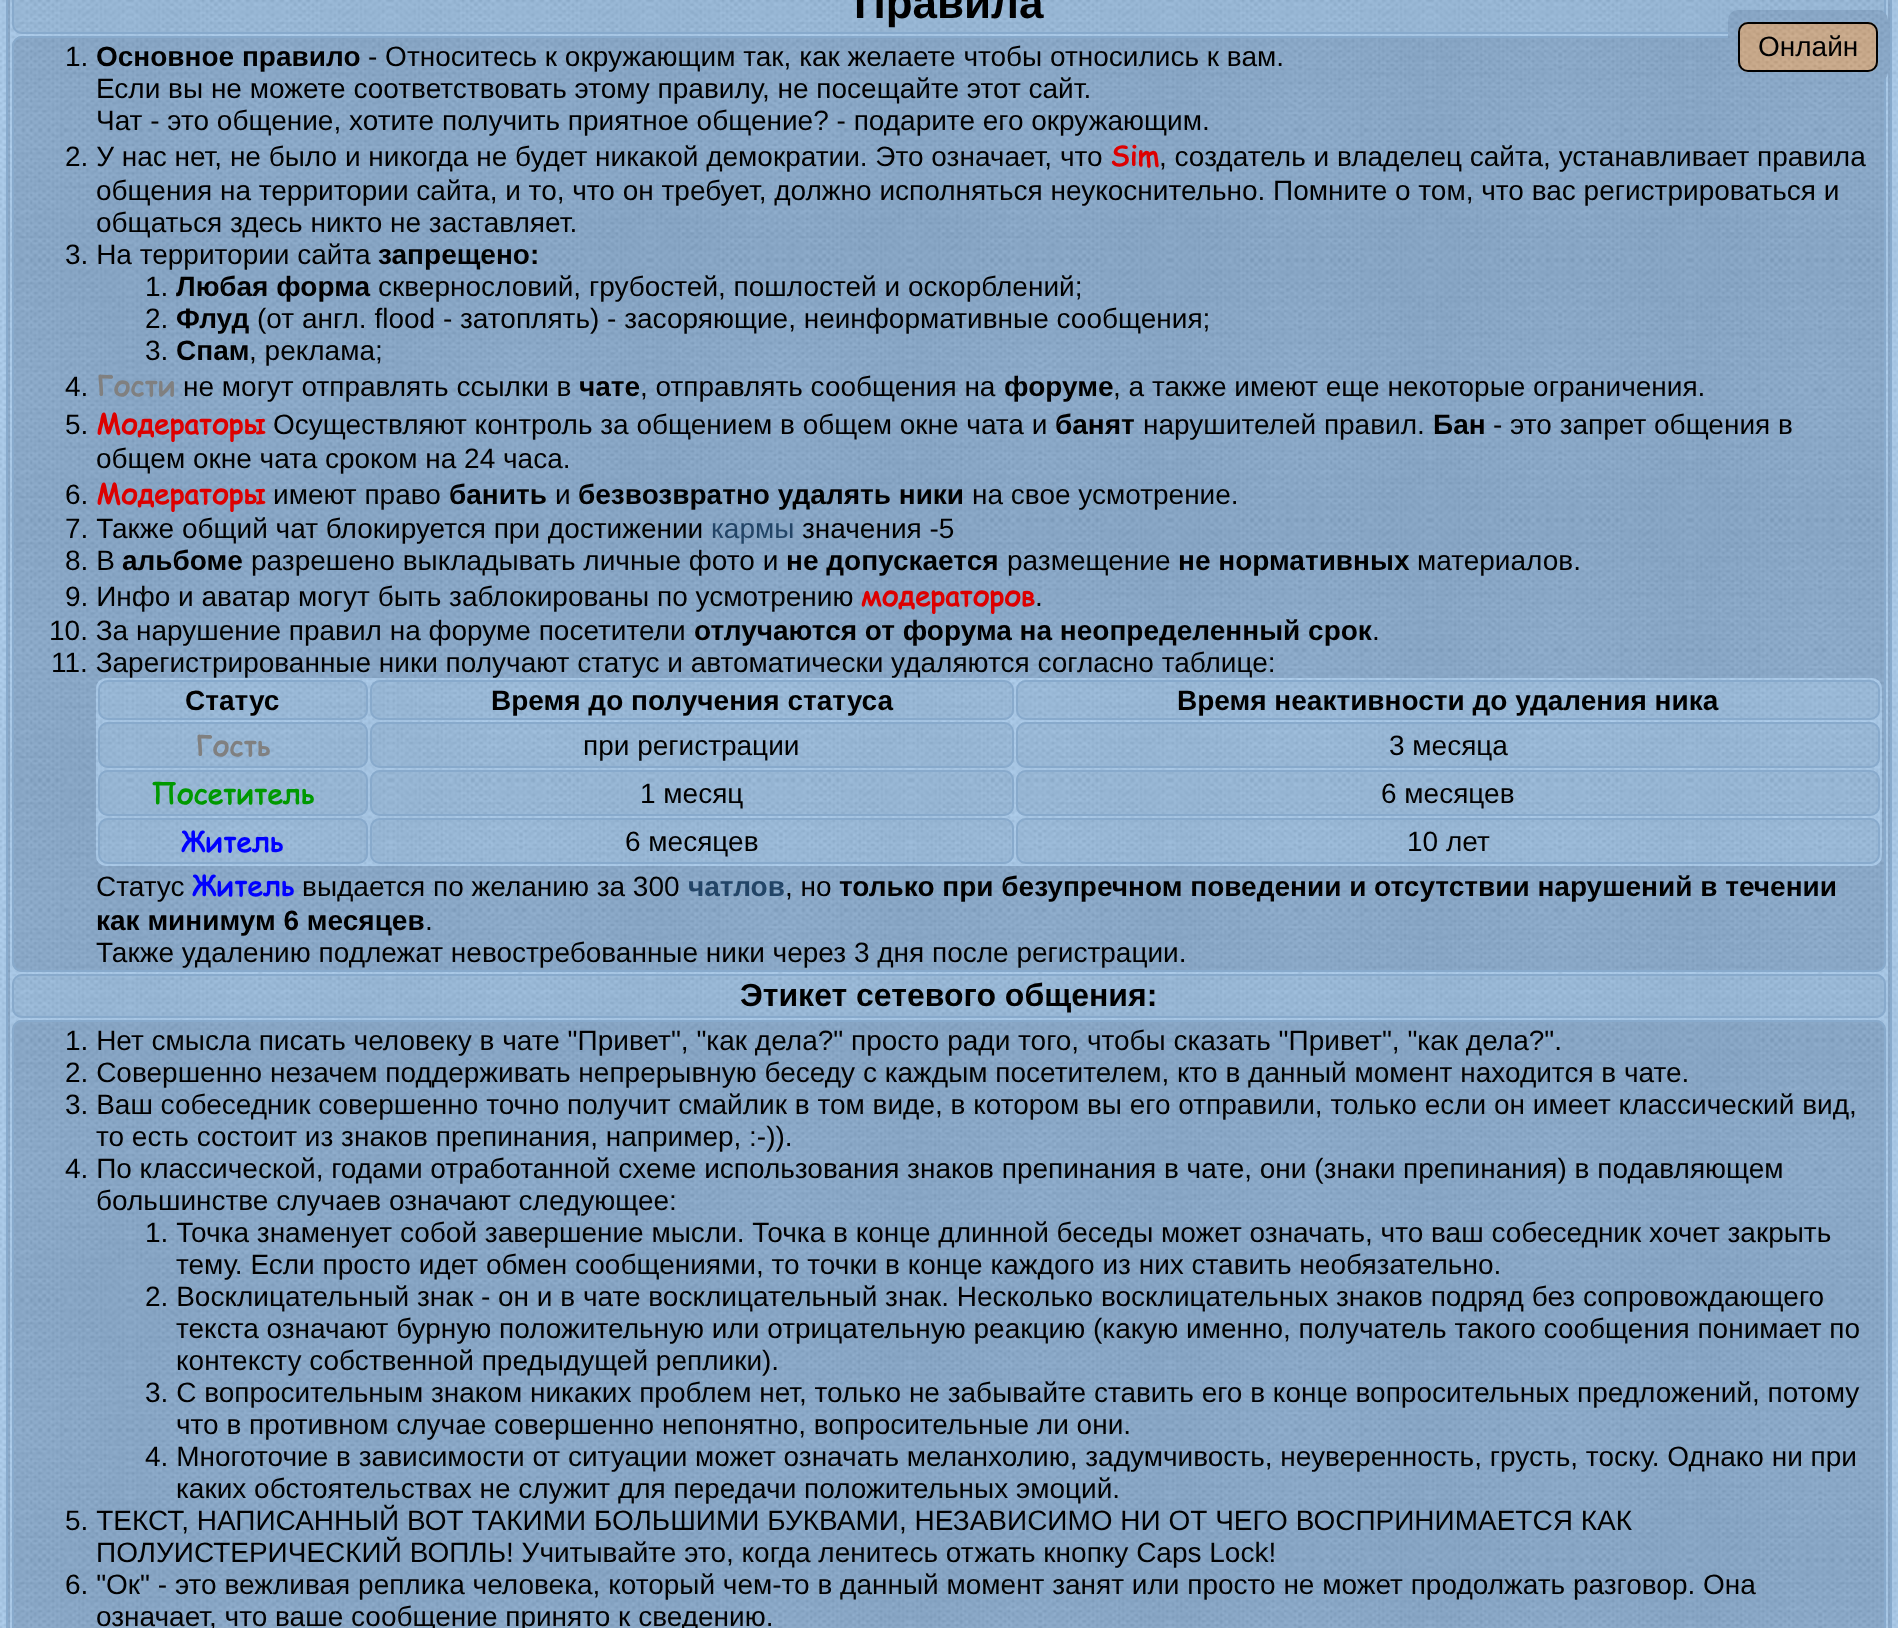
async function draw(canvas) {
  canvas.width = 1898;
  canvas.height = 1628;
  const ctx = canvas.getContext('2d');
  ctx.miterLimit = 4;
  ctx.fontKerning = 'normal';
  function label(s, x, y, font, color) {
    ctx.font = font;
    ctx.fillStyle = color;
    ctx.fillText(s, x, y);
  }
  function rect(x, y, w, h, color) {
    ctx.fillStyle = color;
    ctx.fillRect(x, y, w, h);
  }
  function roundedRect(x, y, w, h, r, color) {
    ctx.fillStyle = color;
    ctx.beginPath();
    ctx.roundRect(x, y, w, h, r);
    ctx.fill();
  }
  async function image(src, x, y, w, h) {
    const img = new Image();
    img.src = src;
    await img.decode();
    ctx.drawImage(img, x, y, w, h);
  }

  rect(0, 0, 1898, 1628, '#ace');
  await image('assets/img1.png', 0, 0, 1898, 1628);
  rect(4, 0, 1890, 1628, '#ace');
  await image('assets/img2.png', 4, 0, 1890, 1628);
  rect(8, 0, 1882, 1628, '#8ac');
  await image('assets/img3.png', 8, 0, 1882, 1628);
  ctx.strokeStyle = '#8ac';
  ctx.lineWidth = 2;
  ctx.strokeRect(7, -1, 1884, 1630);
  rect(10, 0, 1878, 1628, '#ace');
  await image('assets/img4.png', 10, 0, 1878, 1628);
  roundedRect(12, -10, 1874, 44, 10, '#9bd');
  await image('assets/img5.png', 12, 0, 1872, 34);
  ctx.beginPath();
  ctx.roundRect(13, -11, 1872, 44, 9);
  ctx.stroke();
  label('Правила', 854, 18, 'bold 44px Liberation Sans', '#000');
  roundedRect(12, 36, 1874, 936, 10, '#8ac');
  await image('assets/img6.png', 12, 36, 1874, 936);
  ctx.beginPath();
  ctx.roundRect(13, 37, 1872, 934, 9);
  ctx.stroke();
  label('1.', 65, 66, '28px Liberation Sans', '#000');
  label('Основное правило', 96, 66, 'bold 28px Liberation Sans', '#000');
  label('- Относитесь к окружающим так, как желаете чтобы относились к вам.', 368, 66, '28px Liberation Sans', '#000');
  label('Если вы не можете соответствовать этому правилу, не посещайте этот сайт.', 96, 98, '28px Liberation Sans', '#000');
  label('Чат - это общение, хотите получить приятное общение? - подарите его окружающим.', 96, 130, '28px Liberation Sans', '#000');
  label('2. У нас нет, не было и никогда не будет никакой демократии. Это означает, что', 65, 166, '28px Liberation Sans', '#000');
  label('Sim', 1110, 166, 'bold 28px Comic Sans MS', '#d00');
  label(', создатель и владелец cайта, устанавливает правила', 1159, 166, '28px Liberation Sans', '#000');
  label('общения на территории сайта, и то, что он требует, должно исполняться неукоснительно. Помните о том, что вас регистрироваться и', 96, 200, '28px Liberation Sans', '#000');
  label('общаться здесь никто не заставляет.', 96, 232, '28px Liberation Sans', '#000');
  label('3. На территории сайта', 65, 264, '28px Liberation Sans', '#000');
  label('запрещено:', 378, 264, 'bold 28px Liberation Sans', '#000');
  label('1.', 145, 296, '28px Liberation Sans', '#000');
  label('Любая форма', 176, 296, 'bold 28px Liberation Sans', '#000');
  label('сквернословий, грубостей, пошлостей и оскорблений;', 378, 296, '28px Liberation Sans', '#000');
  label('2.', 145, 328, '28px Liberation Sans', '#000');
  label('Флуд', 176, 328, 'bold 28px Liberation Sans', '#000');
  label('(от англ. flood - затоплять) - засоряющие, неинформативные сообщения;', 257, 328, '28px Liberation Sans', '#000');
  label('3.', 145, 360, '28px Liberation Sans', '#000');
  label('Спам', 176, 360, 'bold 28px Liberation Sans', '#000');
  label(', реклама;', 249, 360, '28px Liberation Sans', '#000');
  label('4.', 65, 396, '28px Liberation Sans', '#000');
  label('Гости', 96, 396, 'bold 28px Comic Sans MS', '#808080');
  label('не могут отправлять ссылки в', 183, 396, '28px Liberation Sans', '#000');
  label('чате', 579, 396, 'bold 28px Liberation Sans', '#000');
  label(', отправлять сообщения на', 640, 396, '28px Liberation Sans', '#000');
  label('форуме', 1004, 396, 'bold 28px Liberation Sans', '#000');
  label(', а также имеют еще некоторые ограничения.', 1113, 396, '28px Liberation Sans', '#000');
  label('5.', 65, 434, '28px Liberation Sans', '#000');
  label('Модераторы', 96, 434, 'bold 28px Comic Sans MS', '#d00');
  label('Осуществляют контроль за общением в общем окне чата и', 273, 434, '28px Liberation Sans', '#000');
  label('банят', 1055, 434, 'bold 28px Liberation Sans', '#000');
  label('нарушителей правил.', 1143, 434, '28px Liberation Sans', '#000');
  label('Бан', 1433, 434, 'bold 28px Liberation Sans', '#000');
  label('- это запрет общения в', 1493, 434, '28px Liberation Sans', '#000');
  label('общем окне чата сроком на 24 часа.', 96, 468, '28px Liberation Sans', '#000');
  label('6.', 65, 504, '28px Liberation Sans', '#000');
  label('Модераторы', 96, 504, 'bold 28px Comic Sans MS', '#d00');
  label('имеют право', 273, 504, '28px Liberation Sans', '#000');
  label('банить', 449, 504, 'bold 28px Liberation Sans', '#000');
  label('и', 555, 504, '28px Liberation Sans', '#000');
  label('безвозвратно удалять ники', 578, 504, 'bold 28px Liberation Sans', '#000');
  label('на свое усмотрение.', 972, 504, '28px Liberation Sans', '#000');
  label('7. Также общий чат блокируется при достижении', 65, 538, '28px Liberation Sans', '#000');
  label('кармы', 711, 538, '28px Liberation Sans', '#246');
  label('значения -5', 802, 538, '28px Liberation Sans', '#000');
  label('8. В', 65, 570, '28px Liberation Sans', '#000');
  label('альбоме', 122, 570, 'bold 28px Liberation Sans', '#000');
  label('разрешено выкладывать личные фото и', 251, 570, '28px Liberation Sans', '#000');
  label('не допускается', 786, 570, 'bold 28px Liberation Sans', '#000');
  label('размещение', 1007, 570, '28px Liberation Sans', '#000');
  label('не нормативных', 1178, 570, 'bold 28px Liberation Sans', '#000');
  label('материалов.', 1417, 570, '28px Liberation Sans', '#000');
  label('9. Инфо и аватар могут быть заблокированы по усмотрению', 65, 606, '28px Liberation Sans', '#000');
  label('модераторов', 861, 606, 'bold 28px Comic Sans MS', '#d00');
  label('.', 1035, 606, '28px Liberation Sans', '#000');
  label('10. За нарушение правил на форуме посетители', 49, 640, '28px Liberation Sans', '#000');
  label('отлучаются от форума на неопределенный срок', 694, 640, 'bold 28px Liberation Sans', '#000');
  label('.', 1372, 640, '28px Liberation Sans', '#000');
  label('11. Зарегистрированные ники получают статус и автоматически удаляются согласно таблице:', 51, 672, '28px Liberation Sans', '#000');
  roundedRect(96, 678, 1786, 188, 10, '#ace');
  await image('assets/img7.png', 96, 678, 1786, 188);
  roundedRect(98, 680, 270, 40, 10, '#9bd');
  await image('assets/img8.png', 98, 680, 270, 40);
  ctx.beginPath();
  ctx.roundRect(99, 681, 268, 38, 9);
  ctx.stroke();
  label('Статус', 185, 710, 'bold 28px Liberation Sans', '#000');
  roundedRect(370, 680, 644, 40, 10, '#9bd');
  await image('assets/img9.png', 370, 680, 644, 40);
  ctx.beginPath();
  ctx.roundRect(371, 681, 642, 38, 9);
  ctx.stroke();
  label('Время до получения статуса', 491, 710, 'bold 28px Liberation Sans', '#000');
  roundedRect(1016, 680, 864, 40, 10, '#9bd');
  await image('assets/img10.png', 1016, 680, 864, 40);
  ctx.beginPath();
  ctx.roundRect(1017, 681, 862, 38, 9);
  ctx.stroke();
  label('Время неактивности до удаления ника', 1177, 710, 'bold 28px Liberation Sans', '#000');
  roundedRect(98, 722, 270, 46, 10, '#9bd');
  await image('assets/img11.png', 98, 722, 270, 46);
  ctx.beginPath();
  ctx.roundRect(99, 723, 268, 44, 9);
  ctx.stroke();
  label('Гость', 195, 756, 'bold 28px Comic Sans MS', '#808080');
  roundedRect(370, 722, 644, 46, 10, '#9bd');
  await image('assets/img12.png', 370, 722, 644, 46);
  ctx.beginPath();
  ctx.roundRect(371, 723, 642, 44, 9);
  ctx.stroke();
  label('при регистрации', 583, 755, '28px Liberation Sans', '#000');
  roundedRect(1016, 722, 864, 46, 10, '#9bd');
  await image('assets/img13.png', 1016, 722, 864, 46);
  ctx.beginPath();
  ctx.roundRect(1017, 723, 862, 44, 9);
  ctx.stroke();
  label('3 месяца', 1389, 755, '28px Liberation Sans', '#000');
  roundedRect(98, 770, 270, 46, 10, '#9bd');
  await image('assets/img14.png', 98, 770, 270, 46);
  ctx.beginPath();
  ctx.roundRect(99, 771, 268, 44, 9);
  ctx.stroke();
  label('Посетитель', 151, 804, 'bold 28px Comic Sans MS', '#090');
  roundedRect(370, 770, 644, 46, 10, '#9bd');
  await image('assets/img15.png', 370, 770, 644, 46);
  ctx.beginPath();
  ctx.roundRect(371, 771, 642, 44, 9);
  ctx.stroke();
  label('1 месяц', 640, 803, '28px Liberation Sans', '#000');
  roundedRect(1016, 770, 864, 46, 10, '#9bd');
  await image('assets/img16.png', 1016, 770, 864, 46);
  ctx.beginPath();
  ctx.roundRect(1017, 771, 862, 44, 9);
  ctx.stroke();
  label('6 месяцев', 1381, 803, '28px Liberation Sans', '#000');
  roundedRect(98, 818, 270, 46, 10, '#9bd');
  await image('assets/img17.png', 98, 818, 270, 46);
  ctx.beginPath();
  ctx.roundRect(99, 819, 268, 44, 9);
  ctx.stroke();
  label('Житель', 181, 852, 'bold 28px Comic Sans MS', '#00f');
  roundedRect(370, 818, 644, 46, 10, '#9bd');
  await image('assets/img18.png', 370, 818, 644, 46);
  ctx.beginPath();
  ctx.roundRect(371, 819, 642, 44, 9);
  ctx.stroke();
  label('6 месяцев', 625, 851, '28px Liberation Sans', '#000');
  roundedRect(1016, 818, 864, 46, 10, '#9bd');
  await image('assets/img19.png', 1016, 818, 864, 46);
  ctx.beginPath();
  ctx.roundRect(1017, 819, 862, 44, 9);
  ctx.stroke();
  label('10 лет', 1407, 851, '28px Liberation Sans', '#000');
  label('Статус', 96, 896, '28px Liberation Sans', '#000');
  label('Житель', 192, 896, 'bold 28px Comic Sans MS', '#00f');
  label('выдается по желанию за 300', 302, 896, '28px Liberation Sans', '#000');
  label('чатлов', 688, 896, 'bold 28px Liberation Sans', '#246');
  label(', но', 785, 896, '28px Liberation Sans', '#000');
  label('только при безупречном поведении и отсутствии нарушений в течении', 839, 896, 'bold 28px Liberation Sans', '#000');
  label('как минимум 6 месяцев', 96, 930, 'bold 28px Liberation Sans', '#000');
  label('.', 425, 930, '28px Liberation Sans', '#000');
  label('Также удалению подлежат невостребованные ники через 3 дня после регистрации.', 96, 962, '28px Liberation Sans', '#000');
  roundedRect(12, 974, 1874, 44, 10, '#9bd');
  await image('assets/img20.png', 12, 974, 1874, 44);
  ctx.beginPath();
  ctx.roundRect(13, 975, 1872, 42, 9);
  ctx.stroke();
  label('Этикет сетевого общения:', 740, 1006, 'bold 32px Liberation Sans', '#000');
  roundedRect(12, 1020, 1874, 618, 10, '#8ac');
  await image('assets/img21.png', 12, 1020, 1874, 608);
  ctx.beginPath();
  ctx.roundRect(13, 1021, 1872, 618, 9);
  ctx.stroke();
  label('1. Нет смысла писать человеку в чате "Привет", "как дела?" просто ради того, чтобы сказать "Привет", "как дела?".', 65, 1050, '28px Liberation Sans', '#000');
  label('2. Совершенно незачем поддерживать непрерывную беседу с каждым посетителем, кто в данный момент находится в чате.', 65, 1082, '28px Liberation Sans', '#000');
  label('3. Ваш собеседник совершенно точно получит смайлик в том виде, в котором вы его отправили, только если он имеет классический вид,', 65, 1114, '28px Liberation Sans', '#000');
  label('то есть состоит из знаков препинания, например, :-)).', 96, 1146, '28px Liberation Sans', '#000');
  label('4. По классической, годами отработанной схеме использования знаков препинания в чате, они (знаки препинания) в подавляющем', 65, 1178, '28px Liberation Sans', '#000');
  label('большинстве случаев означают следующее:', 96, 1210, '28px Liberation Sans', '#000');
  label('1. Точка знаменует собой завершение мысли. Точка в конце длинной беседы может означать, что ваш собеседник хочет закрыть', 145, 1242, '28px Liberation Sans', '#000');
  label('тему. Если просто идет обмен сообщениями, то точки в конце каждого из них ставить необязательно.', 176, 1274, '28px Liberation Sans', '#000');
  label('2. Восклицательный знак - он и в чате восклицательный знак. Несколько восклицательных знаков подряд без сопровождающего', 145, 1306, '28px Liberation Sans', '#000');
  label('текста означают бурную положительную или отрицательную реакцию (какую именно, получатель такого сообщения понимает по', 176, 1338, '28px Liberation Sans', '#000');
  label('контексту собственной предыдущей реплики).', 176, 1370, '28px Liberation Sans', '#000');
  label('3. С вопросительным знаком никаких проблем нет, только не забывайте ставить его в конце вопросительных предложений, потому', 145, 1402, '28px Liberation Sans', '#000');
  label('что в противном случае совершенно непонятно, вопросительные ли они.', 176, 1434, '28px Liberation Sans', '#000');
  label('4. Многоточие в зависимости от ситуации может означать меланхолию, задумчивость, неуверенность, грусть, тоску. Однако ни при', 145, 1466, '28px Liberation Sans', '#000');
  label('каких обстоятельствах не служит для передачи положительных эмоций.', 176, 1498, '28px Liberation Sans', '#000');
  label('5. ТЕКСТ, НАПИСАННЫЙ ВОТ ТАКИМИ БОЛЬШИМИ БУКВАМИ, НЕЗАВИСИМО НИ ОТ ЧЕГО ВОСПРИНИМАЕТСЯ КАК', 65, 1530, '28px Liberation Sans', '#000');
  label('ПОЛУИСТЕРИЧЕСКИЙ ВОПЛЬ! Учитывайте это, когда ленитесь отжать кнопку Caps Lock!', 96, 1562, '28px Liberation Sans', '#000');
  label('6. "Ок" - это вежливая реплика человека, который чем-то в данный момент занят или просто не может продолжать разговор. Она', 65, 1594, '28px Liberation Sans', '#000');
  label('означает, что ваше сообщение принято к сведению.', 96, 1626, '28px Liberation Sans', '#000');
  roundedRect(1728, 10, 160, 72, 10, '#8ac');
  await image('assets/img22.png', 1728, 10, 160, 72);
  roundedRect(1738, 22, 140, 50, 10, '#ca8');
  await image('assets/img23.png', 1738, 22, 140, 50);
  ctx.beginPath();
  ctx.roundRect(1739, 23, 138, 48, 9);
  ctx.strokeStyle = '#000';
  ctx.stroke();
  label('Онлайн', 1758, 56, '28px Liberation Sans', '#000');
}

draw(document.querySelector('canvas'));
